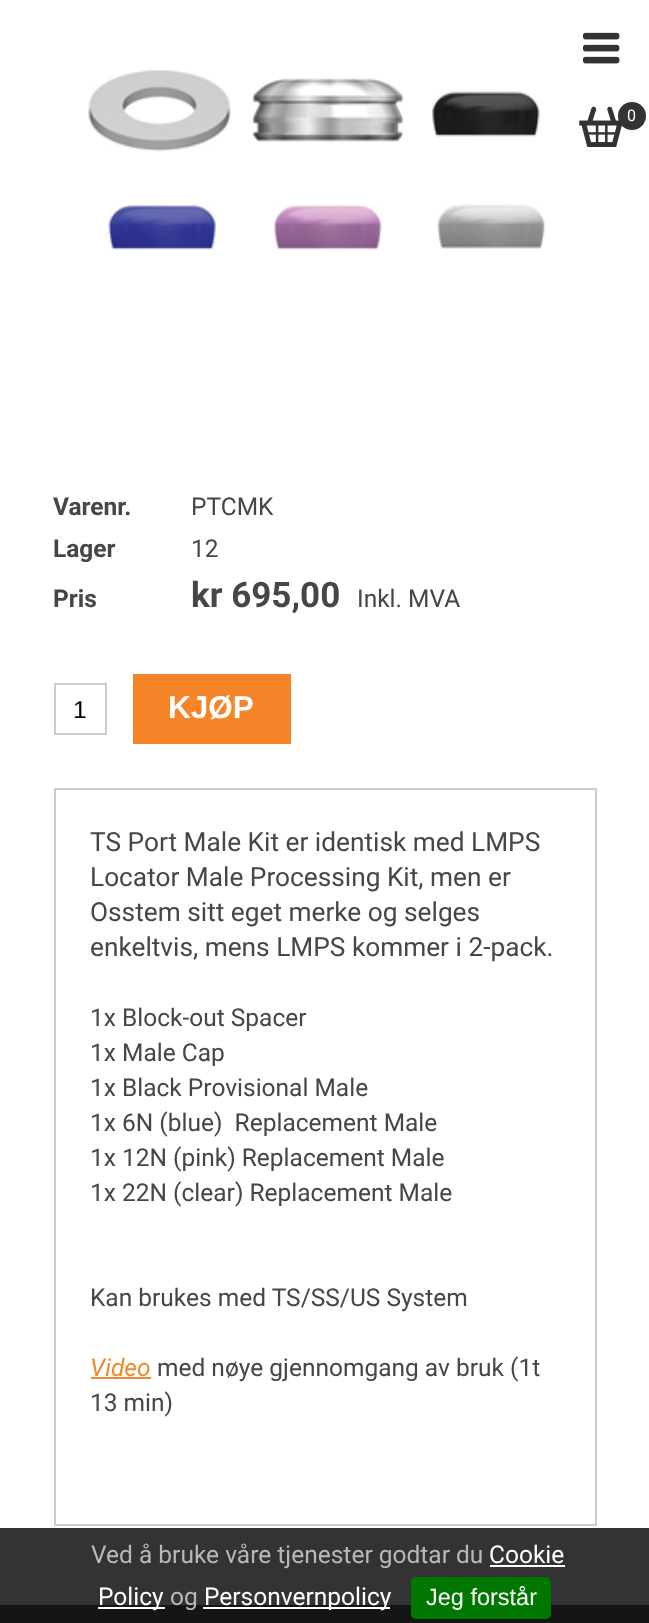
async function draw(canvas) {
  canvas.width = 649;
  canvas.height = 1623;
  const ctx = canvas.getContext('2d');
  ctx.miterLimit = 4;
  ctx.fontKerning = 'normal';
  function label(s, x, y, font, color) {
    ctx.font = font;
    ctx.fillStyle = color;
    ctx.fillText(s, x, y);
  }
  function rect(x, y, w, h, color) {
    ctx.fillStyle = color;
    ctx.fillRect(x, y, w, h);
  }
  function roundedRect(x, y, w, h, r, color) {
    ctx.fillStyle = color;
    ctx.beginPath();
    ctx.roundRect(x, y, w, h, r);
    ctx.fill();
  }
  async function image(src, x, y, w, h) {
    const img = new Image();
    img.src = src;
    await img.decode();
    ctx.drawImage(img, x, y, w, h);
  }

  rect(0, 0, 649, 1623, '#fff');
  rect(0, 1528, 649, 77, '#333');
  await image('assets/img1.png', 583, 32, 37, 32);
  await image('assets/img2.png', 579, 106, 44, 41);
  ctx.beginPath();
  ctx.arc(632, 116, 14, 0, 2 * Math.PI);
  ctx.fill();
  label('0', 627, 121, '16px Roboto', '#fff');
  await image('assets/img3.png', 88, 69, 457, 181);
  label('Varenr.', 53, 515, 'bold 24.5px Roboto', '#474546');
  label('PTCMK', 191, 515, '24.5px Roboto', '#474546');
  label('Lager', 53, 557, 'bold 24.5px Roboto', '#474546');
  label('12', 191, 557, '24.5px Roboto', '#474546');
  label('Pris', 53, 607, 'bold 24.5px Roboto', '#474546');
  label('kr 695,00', 191, 607, 'bold 35px Roboto', '#474546');
  label('Inkl. MVA', 357, 607, '24.5px Roboto', '#474546');
  ctx.strokeStyle = '#ccc';
  ctx.lineWidth = 2;
  ctx.strokeRect(55, 684, 51, 50);
  label('1', 73, 718, '24.5px Liberation Sans', '#000');
  rect(133, 674, 158, 70, '#f68428');
  label('KJØP', 168, 718, 'bold 31.5px Liberation Sans', '#fff');
  ctx.strokeRect(55, 789, 541, 736);
  label('TS Port Male Kit er identisk med LMPS', 90, 851, '26.25px Roboto', '#474546');
  label('Locator Male Processing Kit, men er', 90, 886, '26.25px Roboto', '#474546');
  label('Osstem sitt eget merke og selges', 90, 921, '26.25px Roboto', '#474546');
  label('enkeltvis, mens LMPS kommer i 2-pack.', 90, 956, '26.25px Roboto', '#474546');
  label('1x Block-out Spacer', 90, 1026, '24.5px Roboto', '#474546');
  label('1x Male Cap', 90, 1061, '24.5px Roboto', '#474546');
  label('1x Black Provisional Male', 90, 1096, '24.5px Roboto', '#474546');
  label('1x 6N (blue)  Replacement Male', 90, 1131, '24.5px Roboto', '#474546');
  label('1x 12N (pink) Replacement Male', 90, 1166, '24.5px Roboto', '#474546');
  label('1x 22N (clear) Replacement Male', 90, 1201, '24.5px Roboto', '#474546');
  label('Kan brukes med TS/SS/US System', 90, 1306, '24.5px Roboto', '#474546');
  label('Video', 90, 1376, 'italic 24.5px Roboto', '#eb8b2d');
  rect(91, 1377, 60, 2, '#eb8b2d');
  label('med nøye gjennomgang av bruk (1t', 157, 1376, '24.5px Roboto', '#474546');
  label('13 min)', 90, 1411, '24.5px Roboto', '#474546');
  rect(0, 1605, 649, 18, '#151515');
  label('Ved å bruke våre tjenester godtar du', 91, 1563, '24.5px Roboto', '#b8b8b8');
  label('Cookie', 489, 1563, '24.5px Roboto', '#fff');
  rect(490, 1565, 75, 2, '#fff');
  rect(98, 1607, 67, 2, '#fff');
  label('Policy', 98, 1605, '24.5px Roboto', '#fff');
  label('og', 170, 1605, '24.5px Roboto', '#b8b8b8');
  rect(203, 1607, 187, 2, '#fff');
  label('Personvernpolicy', 204, 1605, '24.5px Roboto', '#fff');
  roundedRect(411, 1577, 140, 42, 5, '#070');
  label('Jeg forstår', 426, 1605, '23.5px Liberation Sans', '#fff');
}

draw(document.querySelector('canvas'));
